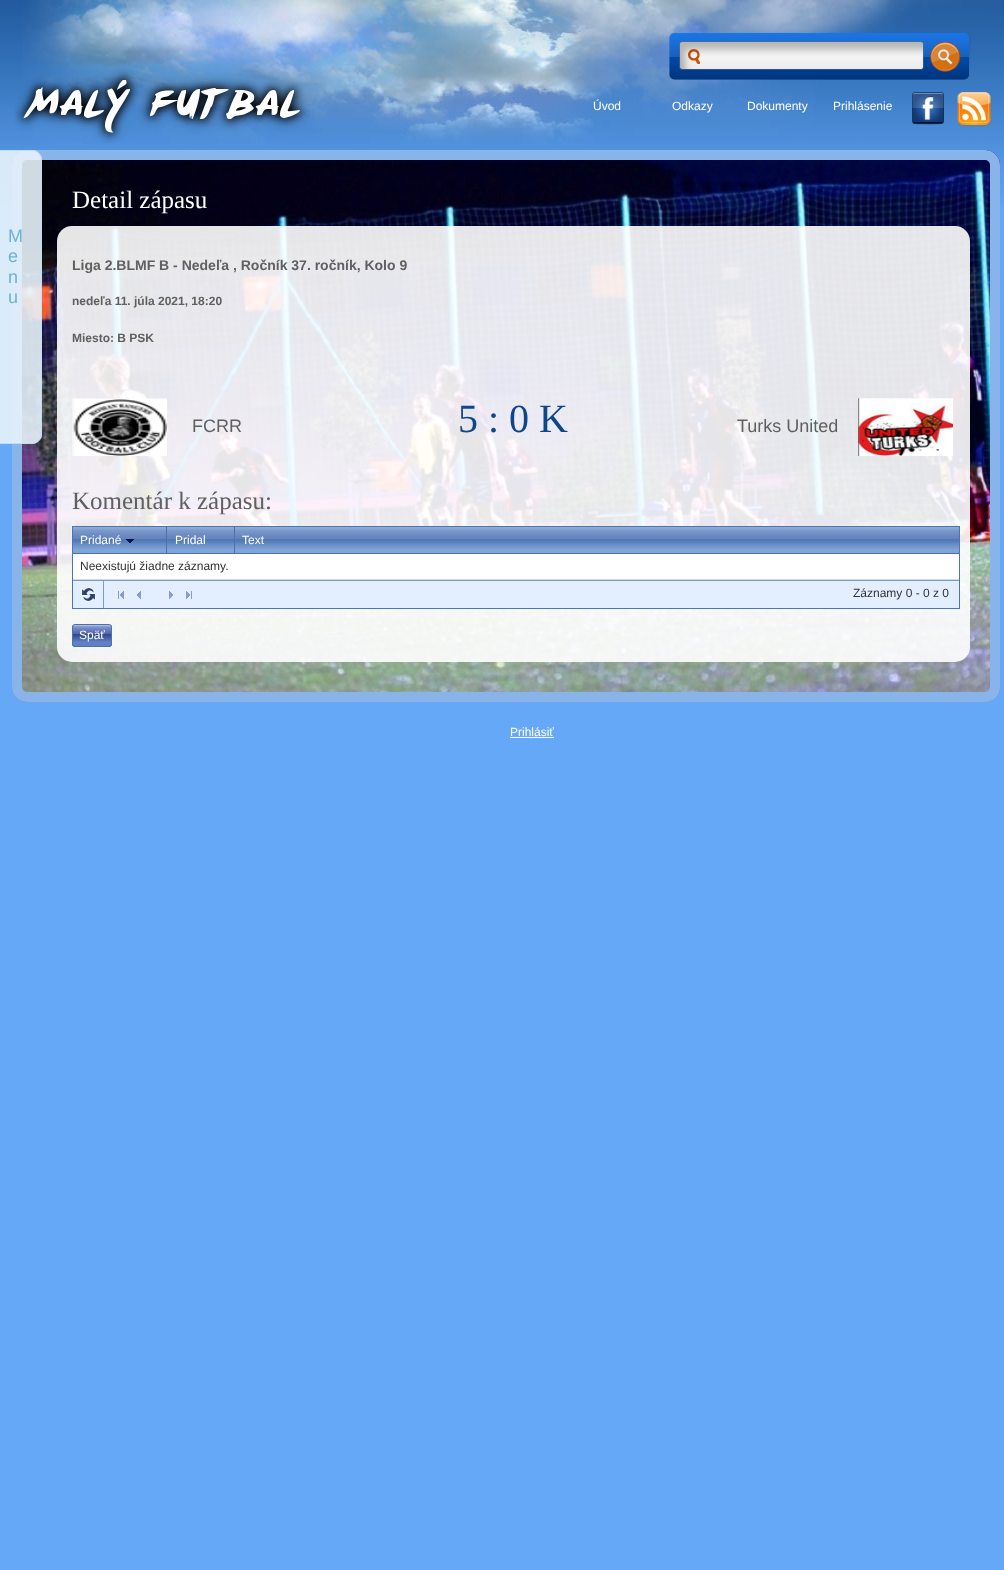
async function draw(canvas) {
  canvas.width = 1004;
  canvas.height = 1570;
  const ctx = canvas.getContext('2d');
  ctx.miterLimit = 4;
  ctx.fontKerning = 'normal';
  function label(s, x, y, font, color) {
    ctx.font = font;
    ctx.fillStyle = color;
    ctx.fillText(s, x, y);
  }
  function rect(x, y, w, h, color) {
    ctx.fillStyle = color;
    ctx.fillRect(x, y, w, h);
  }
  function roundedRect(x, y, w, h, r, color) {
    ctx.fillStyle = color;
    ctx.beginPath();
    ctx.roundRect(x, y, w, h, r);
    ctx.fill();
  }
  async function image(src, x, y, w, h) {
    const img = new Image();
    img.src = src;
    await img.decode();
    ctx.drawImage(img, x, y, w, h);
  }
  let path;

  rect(0, 0, 1004, 1570, '#65a8f7');
  await image('assets/img1.png', 0, 0, 1004, 206);
  await image('assets/img7.png', 12, 150, 988, 552);
  ctx.beginPath();
  ctx.roundRect(17, 155, 978, 542, 10);
  ctx.strokeStyle = '#88b4e9';
  ctx.lineWidth = 10;
  ctx.stroke();
  ctx.fillStyle = '#e7f2f9e6';
  path = new Path2D('M-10 150H32C37.5 150 42 154.5 42 160V434C42 439.5 37.5 444 32 444H-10Z');
  ctx.fill(path);
  path = new Path2D('M-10.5 150.5H32C37 150.5 41.5 155 41.5 160V434C41.5 439 37 443.5 32 443.5H-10.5Z');
  ctx.strokeStyle = '#bddcefe6';
  ctx.lineWidth = 1;
  ctx.stroke(path);
  label('M', 8, 242, '18px Liberation Sans', '#6cb2db');
  label('e', 8, 262, '18px Liberation Sans', '#6cb2db');
  label('n', 8, 283, '18px Liberation Sans', '#6cb2db');
  label('u', 8, 303, '18px Liberation Sans', '#6cb2db');
  await image('assets/img2.png', 23, 0, 979, 145);
  await image('assets/img3.png', 669, 33, 302, 47);
  await image('assets/img4.png', 14, 69, 296, 74);
  label('Úvod', 593, 110, '12px Liberation Sans', '#fff');
  label('Odkazy', 672, 110, '12px Liberation Sans', '#fff');
  label('Dokumenty', 747, 110, '12px Liberation Sans', '#fff');
  label('Prihlásenie', 833, 110, '12px Liberation Sans', '#fff');
  await image('assets/img5.png', 912, 92, 32, 33);
  await image('assets/img6.png', 956, 92, 36, 35);
  label('Detail zápasu', 72, 208, '25px Liberation Serif', '#fff');
  roundedRect(57, 226, 913, 436, 15, '#ffffffe6');
  label('Liga 2.BLMF B - Nedeľa , Ročník 37. ročník, Kolo 9', 72, 270, 'bold 14px Liberation Sans', '#606060');
  label('nedeľa 11. júla 2021, 18:20', 72, 305, 'bold 12px Liberation Sans', '#606060');
  label('Miesto: B PSK', 72, 342, 'bold 12px Liberation Sans', '#606060');
  await image('assets/img8.png', 72, 398, 95, 58);
  label('FCRR', 192, 432, '18px Liberation Sans', '#606060');
  label('5 : 0 K', 458, 432, '40px Liberation Serif', '#0e468c');
  label('Turks United', 737, 432, '18px Liberation Sans', '#606060');
  await image('assets/img9.png', 858, 398, 95, 58);
  label('Komentár k zápasu:', 72, 509, '25px Liberation Serif', '#606060');
  rect(73, 554, 886, 25, '#fff');
  ctx.strokeStyle = '#4e75b3';
  ctx.strokeRect(72.5, 526.5, 887, 82);
  rect(73, 549, 886, 4, '#7fa5d7');
  await image('assets/img10.png', 73, 527, 93, 22);
  rect(73, 553, 886, 1, '#4a70ae');
  label('Pridané', 80, 544, '12px Liberation Sans', '#fff');
  await image('assets/img11.png', 126, 539, 8, 4);
  await image('assets/img12.png', 167, 527, 67, 22);
  rect(166, 527, 1, 27, '#4a70ae');
  label('Pridal', 175, 544, '12px Liberation Sans', '#fff');
  await image('assets/img13.png', 235, 527, 724, 22);
  rect(234, 527, 1, 27, '#4a70ae');
  label('Text', 242, 544, '12px Liberation Sans', '#fff');
  rect(73, 579, 886, 1, '#cfd9e7');
  label('Neexistujú žiadne záznamy.', 80, 570, '12px Liberation Sans', '#333');
  rect(73, 581, 886, 27, '#e3eeff');
  rect(73, 580, 886, 1, '#829cbf');
  rect(103, 581, 1, 27, '#829cbf');
  await image('assets/img14.png', 81, 587, 15, 15);
  await image('assets/img15.png', 118, 591, 6, 8);
  await image('assets/img16.png', 137, 591, 4, 8);
  await image('assets/img17.png', 169, 591, 4, 8);
  await image('assets/img18.png', 186, 591, 6, 8);
  label('Záznamy 0 - 0 z 0', 853, 597, '12px Liberation Sans', '#333');
  await image('assets/img19.png', 72, 625, 40, 22);
  ctx.beginPath();
  ctx.roundRect(72.5, 624.5, 39, 22, 2.5);
  ctx.strokeStyle = '#4a70ae';
  ctx.stroke();
  label('Späť', 79, 639, '12px Liberation Sans', '#fff');
  label('Prihlásiť', 510, 736, '12px Liberation Sans', '#fff');
  rect(510, 737, 44, 1, '#fff');
}

draw(document.querySelector('canvas'));
